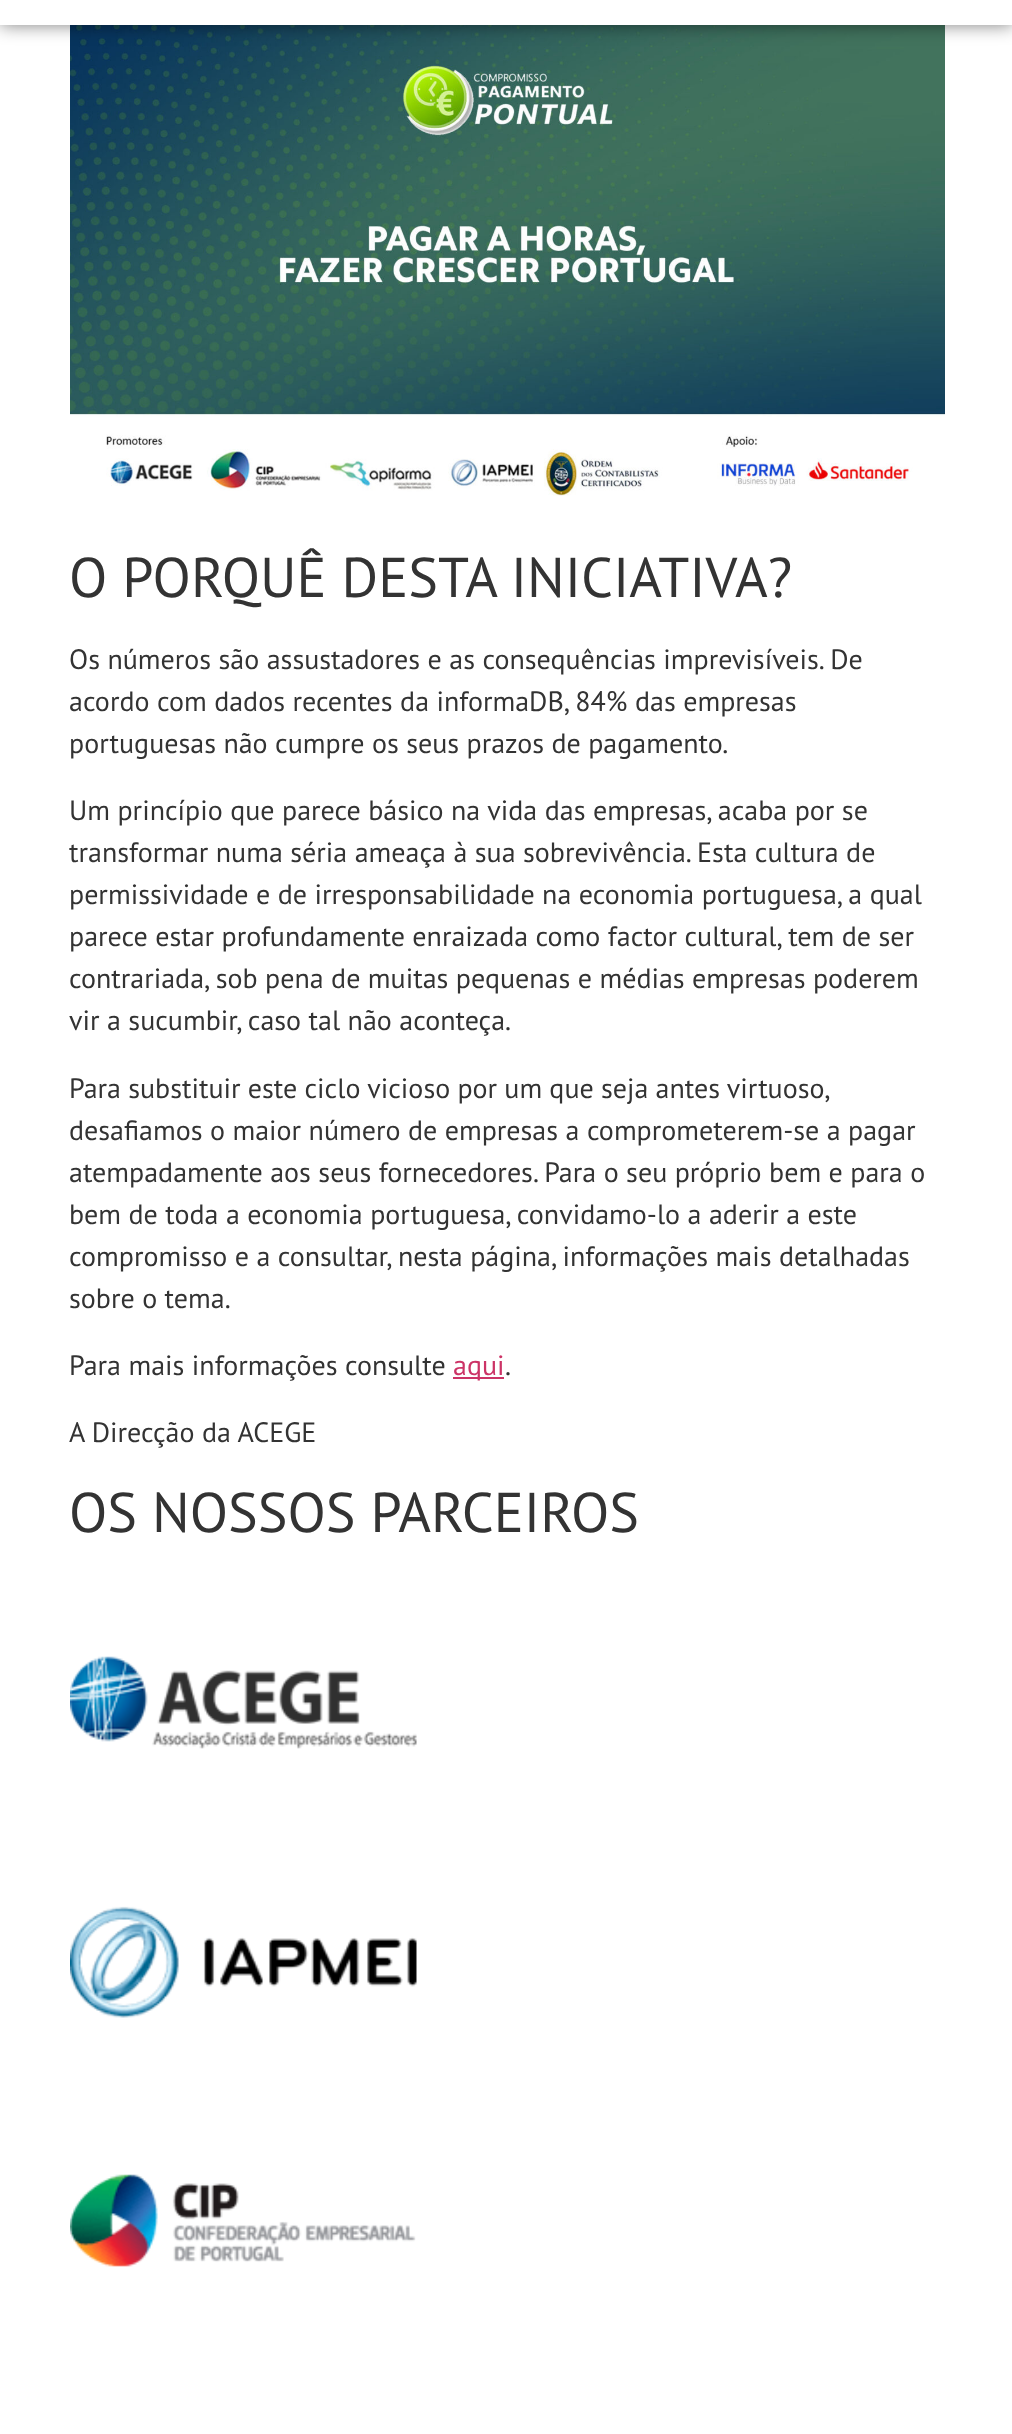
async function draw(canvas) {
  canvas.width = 1012;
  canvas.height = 2434;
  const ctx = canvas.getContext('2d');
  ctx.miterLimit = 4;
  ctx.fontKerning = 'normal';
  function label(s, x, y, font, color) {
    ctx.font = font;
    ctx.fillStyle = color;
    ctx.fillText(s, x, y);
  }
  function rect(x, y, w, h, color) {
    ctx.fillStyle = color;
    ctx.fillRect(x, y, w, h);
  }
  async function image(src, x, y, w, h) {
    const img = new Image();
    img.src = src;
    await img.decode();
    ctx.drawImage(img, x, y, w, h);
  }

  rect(0, 0, 1012, 2434, '#fff');
  await image('assets/img1.png', 70, 25, 875, 471);
  ctx.fillStyle = '#00000080';
  ctx.filter = 'blur(9px)';
  ctx.beginPath();
  ctx.rect(0, -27, 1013, 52);
  ctx.fill();
  ctx.filter = 'none';
  rect(0, 0, 1012, 25, '#fff');
  label('O PORQUÊ DESTA INICIATIVA?', 69, 597, '56px PT Sans', '#333');
  label('Os números são assustadores e as consequências imprevisíveis. De', 69, 669, '28px PT Sans', '#333');
  label('acordo com dados recentes da informaDB, 84% das empresas', 69, 711, '28px PT Sans', '#333');
  label('portuguesas não cumpre os seus prazos de pagamento.', 69, 753, '28px PT Sans', '#333');
  label('Um princípio que parece básico na vida das empresas, acaba por se', 69, 820, '28px PT Sans', '#333');
  label('transformar numa séria ameaça à sua sobrevivência. Esta cultura de', 69, 862, '28px PT Sans', '#333');
  label('permissividade e de irresponsabilidade na economia portuguesa, a qual', 69, 904, '28px PT Sans', '#333');
  label('parece estar profundamente enraizada como factor cultural, tem de ser', 69, 946, '28px PT Sans', '#333');
  label('contrariada, sob pena de muitas pequenas e médias empresas poderem', 69, 988, '28px PT Sans', '#333');
  label('vir a sucumbir, caso tal não aconteça.', 69, 1030, '28px PT Sans', '#333');
  ctx.wordSpacing = '-0.25px';
  label('Para substituir este ciclo vicioso por um que seja antes virtuoso,', 69, 1098, '28px PT Sans', '#333');
  ctx.wordSpacing = '0px';
  label('desafiamos o maior número de empresas a comprometerem-se a pagar', 69, 1140, '28px PT Sans', '#333');
  label('atempadamente aos seus fornecedores. Para o seu próprio bem e para o', 69, 1182, '28px PT Sans', '#333');
  label('bem de toda a economia portuguesa, convidamo-lo a aderir a este', 69, 1224, '28px PT Sans', '#333');
  label('compromisso e a consultar, nesta página, informações mais detalhadas', 69, 1266, '28px PT Sans', '#333');
  label('sobre o tema.', 69, 1308, '28px PT Sans', '#333');
  label('Para mais informações consulte', 69, 1375, '28px PT Sans', '#333');
  rect(453, 1377, 51, 2, '#c36');
  label('aqui', 453, 1375, '28px PT Sans', '#c36');
  label('.', 505, 1375, '28px PT Sans', '#333');
  label('A Direcção da ACEGE', 69, 1442, '28px PT Sans', '#333');
  label('OS NOSSOS PARCEIROS', 69, 1532, '56px PT Sans', '#333');
  await image('assets/img2.png', 70, 1656, 347, 93);
  await image('assets/img3.png', 70, 1906, 347, 112);
  await image('assets/img4.png', 70, 2174, 346, 93);
}

draw(document.querySelector('canvas'));
